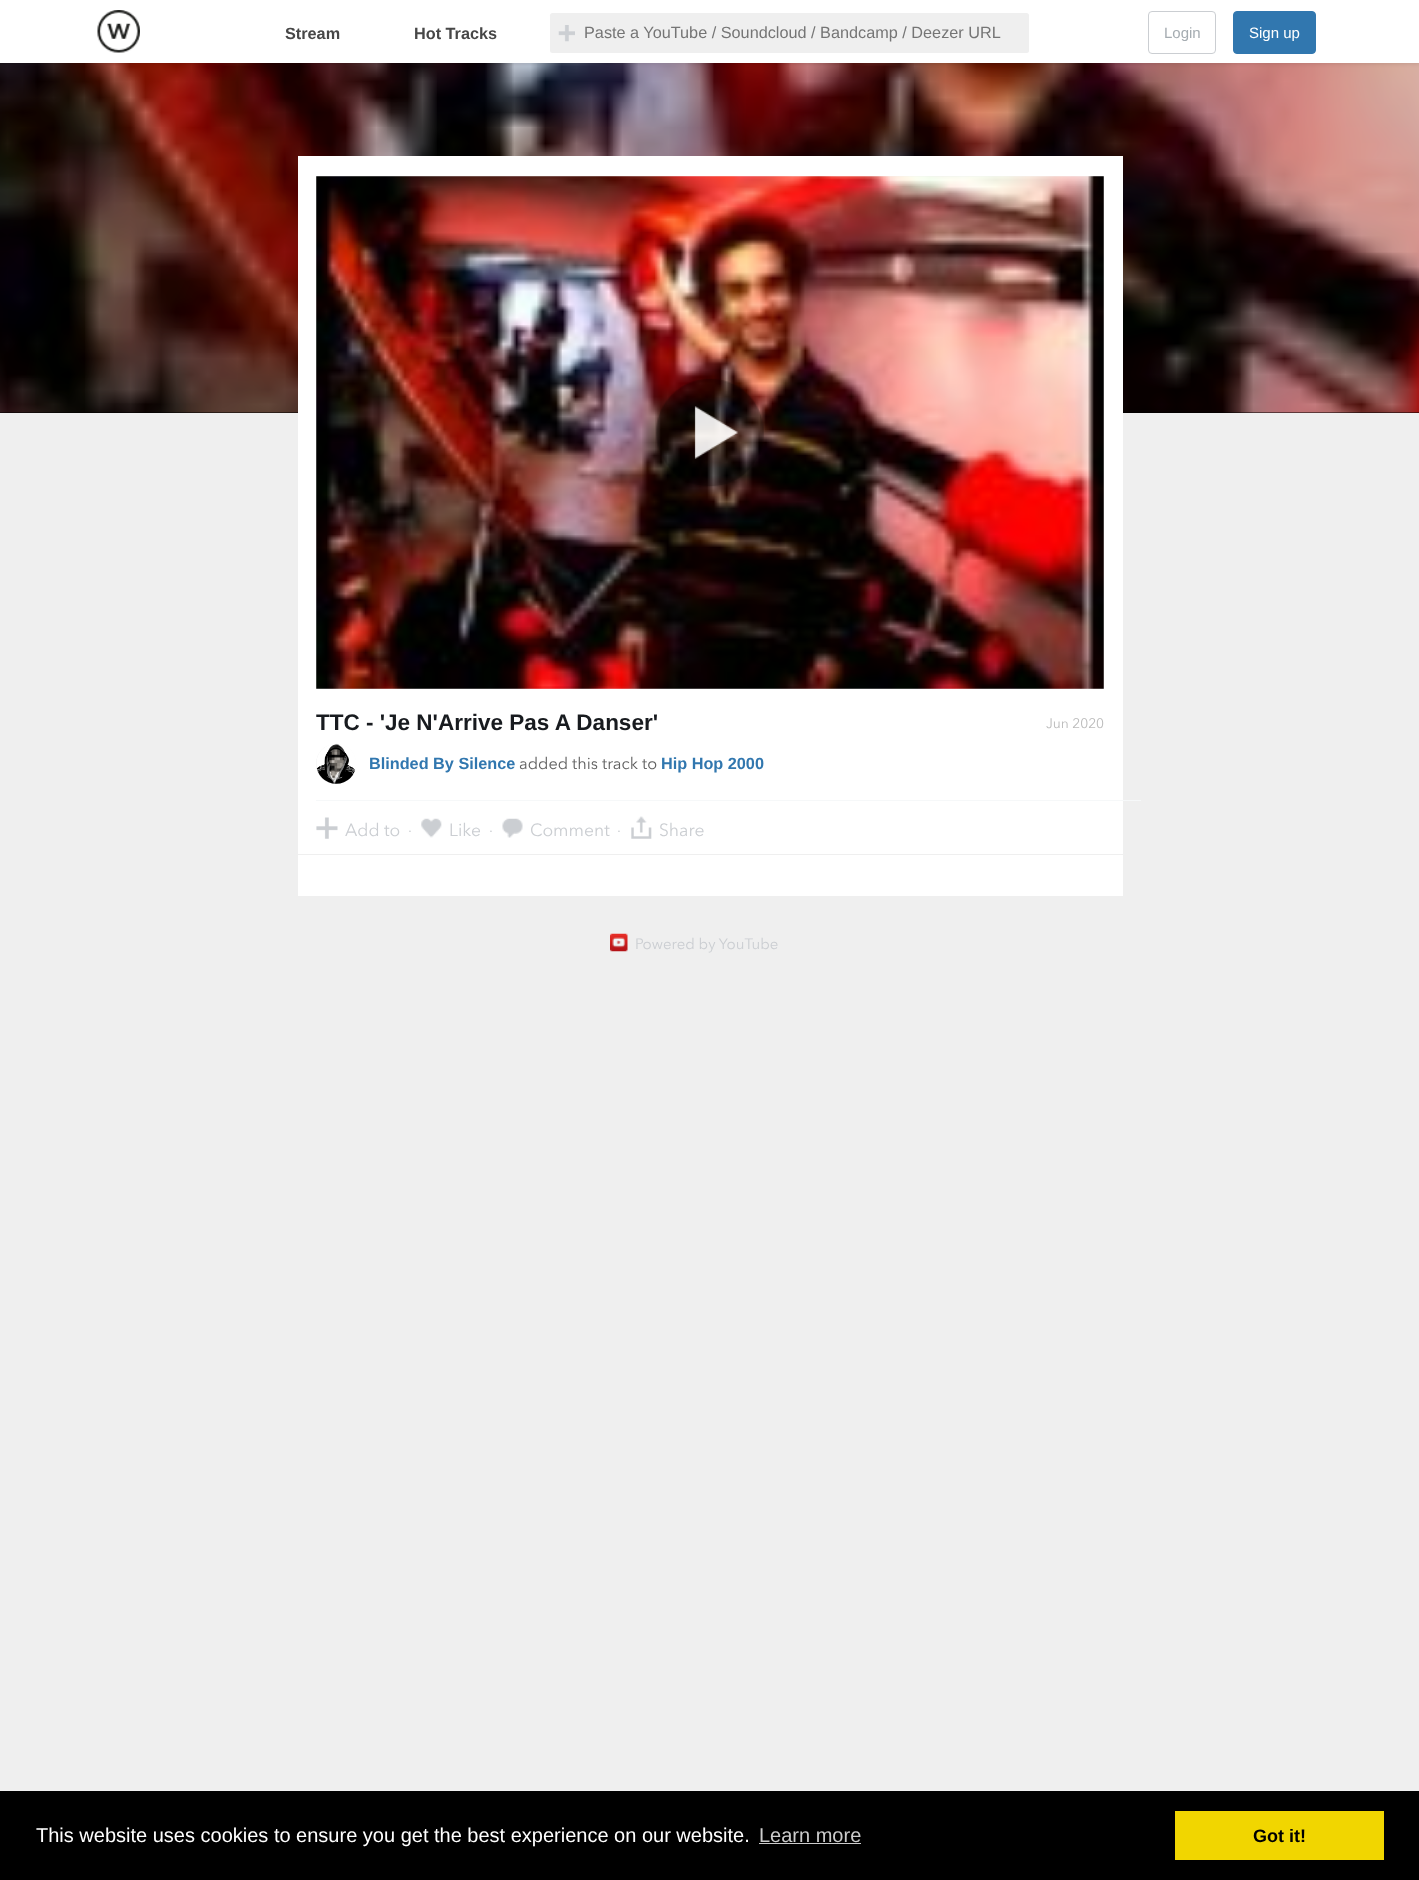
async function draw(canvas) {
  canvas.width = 1419;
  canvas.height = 1880;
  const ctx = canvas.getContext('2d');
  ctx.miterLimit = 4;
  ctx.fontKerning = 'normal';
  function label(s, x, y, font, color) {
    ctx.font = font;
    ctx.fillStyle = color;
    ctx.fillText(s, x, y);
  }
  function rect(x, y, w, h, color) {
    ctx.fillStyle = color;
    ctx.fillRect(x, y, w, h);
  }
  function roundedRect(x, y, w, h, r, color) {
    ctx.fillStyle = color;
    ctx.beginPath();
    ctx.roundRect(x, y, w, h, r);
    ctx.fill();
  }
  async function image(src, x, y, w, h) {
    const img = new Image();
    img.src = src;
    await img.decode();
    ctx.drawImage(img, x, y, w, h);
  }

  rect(0, 0, 1419, 1880, '#efefef');
  rect(0, 63, 1419, 350, '#000');
  await image('assets/img3.png', 0, 63, 1419, 350);
  ctx.fillStyle = '#0000001a';
  ctx.filter = 'blur(2px)';
  ctx.beginPath();
  ctx.rect(0, 1, 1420, 63);
  ctx.fill();
  ctx.filter = 'none';
  rect(0, 0, 1419, 63, '#fff');
  await image('assets/img1.png', 97, 10, 43, 43);
  label('Stream', 285, 39, 'bold 16.25px Liberation Sans', '#474747');
  label('Hot Tracks', 414, 39, 'bold 16.25px Liberation Sans', '#474747');
  roundedRect(550, 13, 479, 40, 2.5, '#efefef');
  await image('assets/img2.png', 558, 25, 17, 17);
  label('Paste a YouTube / Soundcloud / Bandcamp / Deezer URL', 584, 38, '16.25px Liberation Sans', '#757575');
  ctx.beginPath();
  ctx.roundRect(1148.5, 11.5, 67, 42, 3.5);
  ctx.strokeStyle = '#cbced2';
  ctx.stroke();
  label('Login', 1164, 38, '15px Liberation Sans', '#a5acb1');
  ctx.fillStyle = '#3177af';
  ctx.beginPath();
  ctx.roundRect(1233.5, 11.5, 82, 42, 3.5);
  ctx.fill();
  ctx.strokeStyle = '#3177af';
  ctx.stroke();
  label('Sign up', 1249, 38, '15px Liberation Sans', '#fff');
  rect(298, 156, 825, 740, '#fff');
  rect(316, 176, 788, 513, '#efefef');
  await image('assets/img4.png', 316, 176, 788, 513);
  await image('assets/img5.png', 656, 378, 108, 109);
  label('TTC - \'Je N\'Arrive Pas A Danser\'', 316, 730, 'bold 22.5px Liberation Sans', '#181b1f');
  label('Jun 2020', 1046, 728, '13.75px Avenir Next', '#bbb');
  rect(316, 800, 825, 1, '#f6f8f9');
  ctx.fillStyle = '#efefef';
  ctx.beginPath();
  ctx.arc(336, 764, 20, 0, 2 * Math.PI);
  ctx.fill();
  await image('assets/img6.png', 316, 743, 40, 41);
  label('Blinded By Silence', 369, 769, 'bold 16.25px Liberation Sans', '#3177af');
  label('added this track to', 519, 769, '16.25px Avenir Next', '#5f5f5f');
  label('Hip Hop 2000', 661, 769, 'bold 16.25px Liberation Sans', '#3177af');
  await image('assets/img7.png', 316, 817, 22, 22);
  label('Add to', 345, 836, '17.5px Avenir Next', '#cbced2');
  label('·', 408, 836, '15px Avenir Next', '#cbced2');
  await image('assets/img8.png', 421, 818, 21, 20);
  label('Like', 449, 836, '17.5px Avenir Next', '#cbced2');
  label('·', 489, 836, '15px Avenir Next', '#cbced2');
  await image('assets/img9.png', 502, 818, 21, 20);
  label('Comment', 530, 836, '17.5px Avenir Next', '#cbced2');
  label('·', 617, 836, '15px Avenir Next', '#cbced2');
  await image('assets/img10.png', 631, 816, 21, 23);
  label('Share', 659, 836, '17.5px Avenir Next', '#cbced2');
  rect(298, 854, 825, 1, '#efefef');
  await image('assets/img11.png', 610, 933, 18, 19);
  label('Powered by YouTube', 635, 949, '15px Avenir Next', '#cbced2');
  rect(0, 1791, 1419, 89, '#000');
  label('This website uses cookies to ensure you get the best experience on our website.', 36, 1842, '20px Liberation Sans', '#fff');
  label('Learn more', 759, 1842, '20px Liberation Sans', '#ccc');
  rect(759, 1843, 102, 1, '#ccc');
  rect(1175, 1811, 209, 49, '#f1d600');
  label('Got it!', 1253, 1842, 'bold 18px Liberation Sans', '#000');
}

draw(document.querySelector('canvas'));
